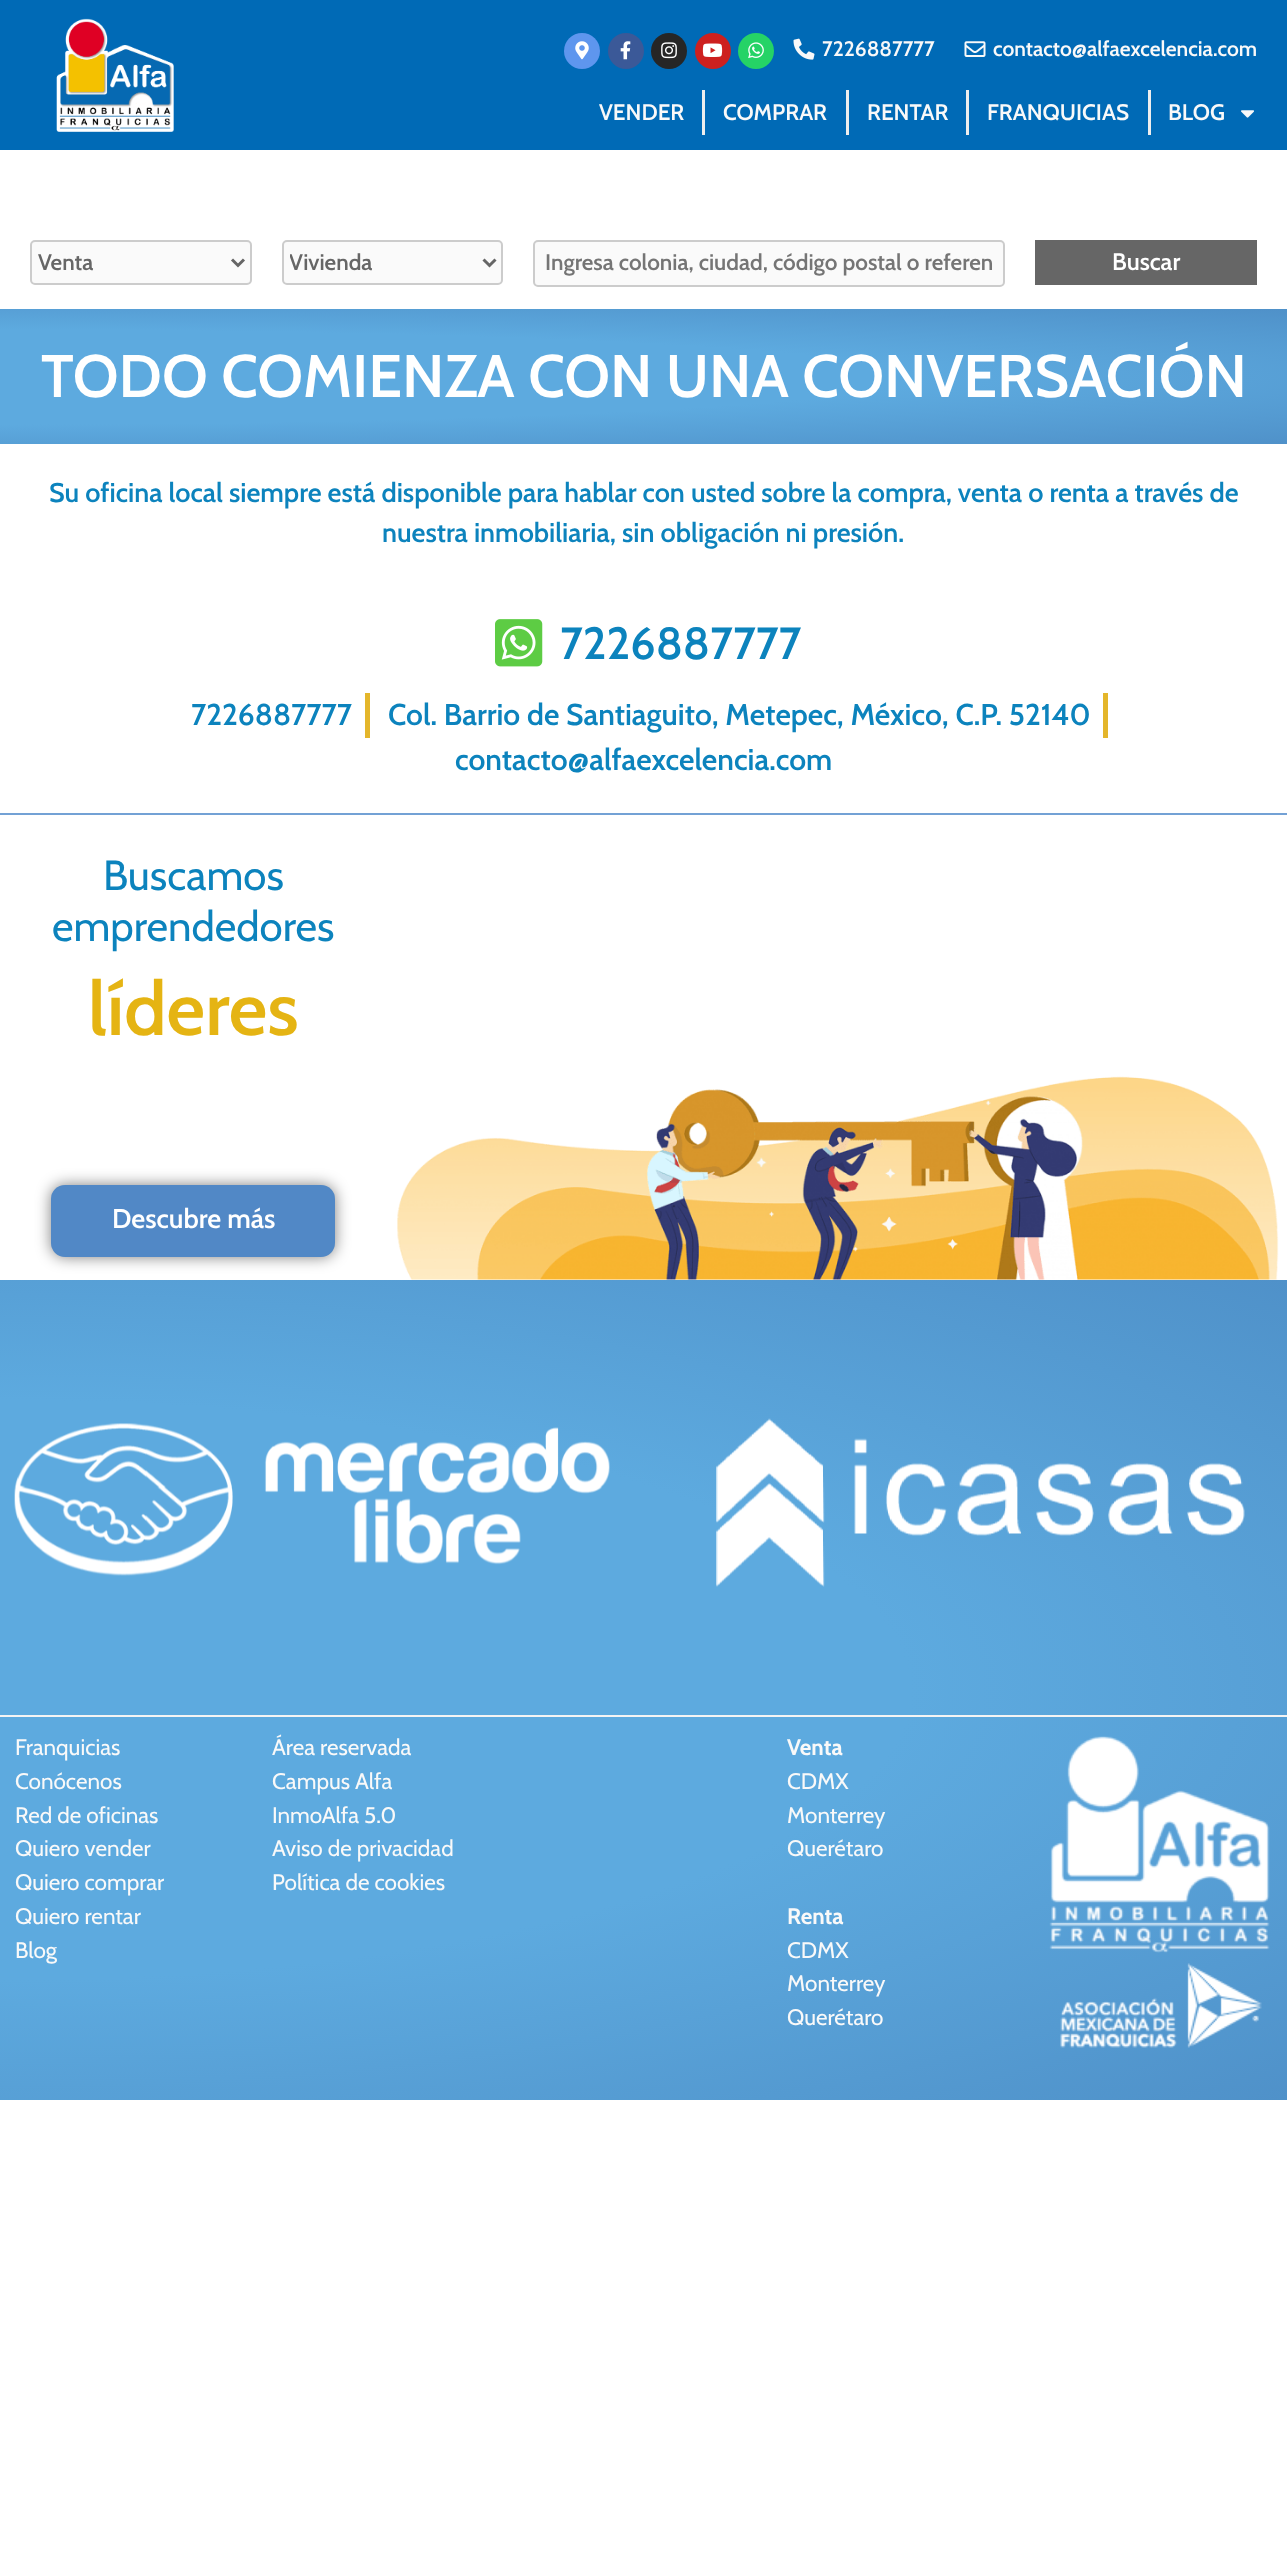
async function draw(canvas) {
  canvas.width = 1287;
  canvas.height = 2559;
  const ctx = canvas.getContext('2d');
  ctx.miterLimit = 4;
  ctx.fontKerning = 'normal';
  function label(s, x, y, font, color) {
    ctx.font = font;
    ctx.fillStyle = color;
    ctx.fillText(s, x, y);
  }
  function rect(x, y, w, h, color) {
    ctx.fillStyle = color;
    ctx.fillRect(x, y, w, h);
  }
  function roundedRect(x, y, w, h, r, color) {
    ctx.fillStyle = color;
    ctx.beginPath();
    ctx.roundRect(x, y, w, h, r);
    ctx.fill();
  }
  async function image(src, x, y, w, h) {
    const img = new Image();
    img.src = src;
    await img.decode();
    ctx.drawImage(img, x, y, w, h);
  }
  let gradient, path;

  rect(0, 0, 1287, 2559, '#fff');
  rect(0, 0, 1287, 150, '#006ab6');
  await image('assets/img1.png', 56, 18, 118, 114);
  ctx.fillStyle = '#5e96ee';
  ctx.beginPath();
  ctx.arc(582, 51, 18, 0, 2 * Math.PI);
  ctx.fill();
  await image('assets/img2.png', 575, 41, 14, 19);
  ctx.fillStyle = '#3b5998';
  ctx.beginPath();
  ctx.arc(626, 51, 18, 0, 2 * Math.PI);
  ctx.fill();
  await image('assets/img3.png', 620, 41, 11, 19);
  ctx.fillStyle = '#262626';
  ctx.beginPath();
  ctx.arc(669, 51, 18, 0, 2 * Math.PI);
  ctx.fill();
  await image('assets/img4.png', 661, 42, 16, 17);
  ctx.fillStyle = '#cd201f';
  ctx.beginPath();
  ctx.arc(713, 51, 18, 0, 2 * Math.PI);
  ctx.fill();
  await image('assets/img5.png', 702, 43, 21, 14);
  ctx.fillStyle = '#25d366';
  ctx.beginPath();
  ctx.arc(756, 51, 18, 0, 2 * Math.PI);
  ctx.fill();
  await image('assets/img6.png', 748, 42, 16, 17);
  await image('assets/img7.png', 793, 38, 22, 22);
  label('7226887777', 822, 56, '600 21px Cabin', '#f9f9f9');
  await image('assets/img8.png', 964, 41, 22, 16);
  label('contacto@alfaexcelencia.com', 993, 56, '600 21px Cabin', '#f9f9f9');
  rect(702, 90, 3, 45, '#eee');
  label('VENDER', 599, 120, '600 22.5px Cabin', '#f9f9f9');
  rect(846, 90, 3, 45, '#eee');
  label('COMPRAR', 723, 120, '600 22.5px Cabin', '#f9f9f9');
  rect(966, 90, 3, 45, '#eee');
  label('RENTAR', 867, 120, '600 22.5px Cabin', '#f9f9f9');
  rect(1148, 90, 3, 45, '#eee');
  label('FRANQUICIAS', 987, 120, '600 22.5px Cabin', '#f9f9f9');
  label('BLOG', 1168, 120, '600 22.5px Cabin', '#f9f9f9');
  await image('assets/img9.png', 1241, 110, 13, 8);
  ctx.fillStyle = '#fafafa';
  ctx.beginPath();
  ctx.roundRect(31, 241, 220, 43, 4);
  ctx.fill();
  ctx.strokeStyle = '#ccc';
  ctx.lineWidth = 2;
  ctx.stroke();
  path = new Path2D('M232 259.5L238 265.5L244 259.5');
  ctx.strokeStyle = '#666';
  ctx.lineWidth = 3;
  ctx.stroke(path);
  label('Venta', 38, 270, '600 22.5px Cabin', '#666');
  ctx.fillStyle = '#fafafa';
  ctx.beginPath();
  ctx.roundRect(283, 241, 219, 43, 4);
  ctx.fill();
  ctx.strokeStyle = '#ccc';
  ctx.lineWidth = 2;
  ctx.stroke();
  path = new Path2D('M483.5 259.5L489.5 265.5L495.5 259.5');
  ctx.strokeStyle = '#666';
  ctx.lineWidth = 3;
  ctx.stroke(path);
  ctx.save();
  ctx.beginPath();
  ctx.rect(290, 248, 187, 30);
  ctx.clip();
  label('Vivienda', 289, 270, '600 22.5px Cabin', '#666');
  ctx.restore();
  ctx.beginPath();
  ctx.roundRect(534, 241, 470, 45, 4);
  ctx.fill();
  ctx.strokeStyle = '#ccc';
  ctx.lineWidth = 2;
  ctx.stroke();
  label('Ingresa colonia, ciudad, código postal o referen', 545, 270, '600 22.5px Cabin', '#757575');
  rect(1035, 240, 222, 45, '#666');
  label('Buscar', 1112, 270, '600 24px Cabin', '#fff');
  gradient = ctx.createRadialGradient(0, 7222.53, 0, 0, 7222.53, 1820);
  gradient.addColorStop(0.5, '#5daadf');
  gradient.addColorStop(1, '#4f91c9');
  ctx.fillStyle = gradient;
  ctx.beginPath();
  ctx.rect(0, 309, 1287, 135);
  ctx.save();
  ctx.clip();
  ctx.scale(1, 95 / 1820);
  ctx.fillRect(0, 0, 1287, 49026);
  ctx.restore();
  label('TODO COMIENZA CON UNA CONVERSACIÓN', 41, 397, '600 60px Cabin', '#fff');
  label('Su oficina local siempre está disponible para hablar con usted sobre la compra, venta o renta a través de', 49, 502, '600 27px Cabin', '#0c83bd');
  label('nuestra inmobiliaria, sin obligación ni presión.', 382, 542, '600 27px Cabin', '#0c83bd');
  await image('assets/img10.png', 495, 619, 48, 48);
  label('7226887777', 560, 659, '600 45px Cabin', '#0c83bd');
  label('7226887777', 191, 725, '600 30px Cabin', '#0c83bd');
  rect(365, 693, 5, 45, '#e4b62b');
  label('Col. Barrio de Santiaguito, Metepec, México, C.P. 52140', 388, 725, '600 30px Cabin', '#0c83bd');
  rect(1103, 693, 5, 45, '#e4b62b');
  label('contacto@alfaexcelencia.com', 455, 770, '600 30px Cabin', '#0c83bd');
  rect(0, 813, 1287, 2, '#73a1d5');
  label('Buscamos', 103, 890, '42px Cabin', '#0c83bd');
  label('emprendedores', 52, 941, '42px Cabin', '#0c83bd');
  label('líderes', 88, 1035, '600 75px Cabin', '#e5b413');
  ctx.fillStyle = '#00000080';
  ctx.filter = 'blur(7.5px)';
  ctx.beginPath();
  ctx.roundRect(51, 1185, 284, 72, 14);
  ctx.fill();
  ctx.filter = 'none';
  roundedRect(51, 1185, 284, 72, 14, '#5188c6');
  label('Descubre más', 112, 1228, '600 27px Cabin', '#fff');
  await image('assets/img11.png', 397, 1076, 882, 204);
  gradient = ctx.createRadialGradient(0, 5303.1, 0, 0, 5303.1, 1820);
  gradient.addColorStop(0.5, '#5daadf');
  gradient.addColorStop(1, '#4f91c9');
  ctx.fillStyle = gradient;
  ctx.beginPath();
  ctx.rect(0, 1280, 1287, 820);
  ctx.save();
  ctx.clip();
  ctx.scale(1, 580 / 1820);
  ctx.fillRect(0, 0, 1287, 8030);
  ctx.restore();
  await image('assets/img12.png', 14, 1423, 596, 153);
  await image('assets/img13.png', 716, 1418, 529, 169);
  rect(0, 1715, 1287, 2, '#f4f4f4');
  label('Franquicias', 15, 1755, '22.5px Cabin', '#f9f9f9');
  label('Conócenos', 15, 1789, '22.5px Cabin', '#f9f9f9');
  label('Red de oficinas', 15, 1823, '22.5px Cabin', '#f9f9f9');
  label('Quiero vender', 15, 1856, '22.5px Cabin', '#f9f9f9');
  label('Quiero comprar', 15, 1890, '22.5px Cabin', '#f9f9f9');
  label('Quiero rentar', 15, 1924, '22.5px Cabin', '#f9f9f9');
  label('Blog', 15, 1958, '22.5px Cabin', '#f9f9f9');
  label('Área reservada', 272, 1755, '22.5px Cabin', '#f9f9f9');
  label('Campus Alfa', 272, 1789, '22.5px Cabin', '#f9f9f9');
  label('InmoAlfa 5.0', 272, 1823, '22.5px Cabin', '#f9f9f9');
  label('Aviso de privacidad', 272, 1856, '22.5px Cabin', '#f9f9f9');
  label('Política de cookies', 272, 1890, '22.5px Cabin', '#f9f9f9');
  label('Venta', 787, 1755, 'bold 22.5px Cabin', '#f9f9f9');
  label('CDMX', 787, 1789, '22.5px Cabin', '#f9f9f9');
  label('Monterrey', 787, 1823, '22.5px Cabin', '#f9f9f9');
  label('Querétaro', 787, 1856, '22.5px Cabin', '#f9f9f9');
  label('Renta', 787, 1924, 'bold 22.5px Cabin', '#f9f9f9');
  label('CDMX', 787, 1958, '22.5px Cabin', '#f9f9f9');
  label('Monterrey', 787, 1991, '22.5px Cabin', '#f9f9f9');
  label('Querétaro', 787, 2025, '22.5px Cabin', '#f9f9f9');
  await image('assets/img14.png', 1049, 1736, 221, 217);
  await image('assets/img15.png', 1060, 1963, 202, 85);
}

draw(document.querySelector('canvas'));
